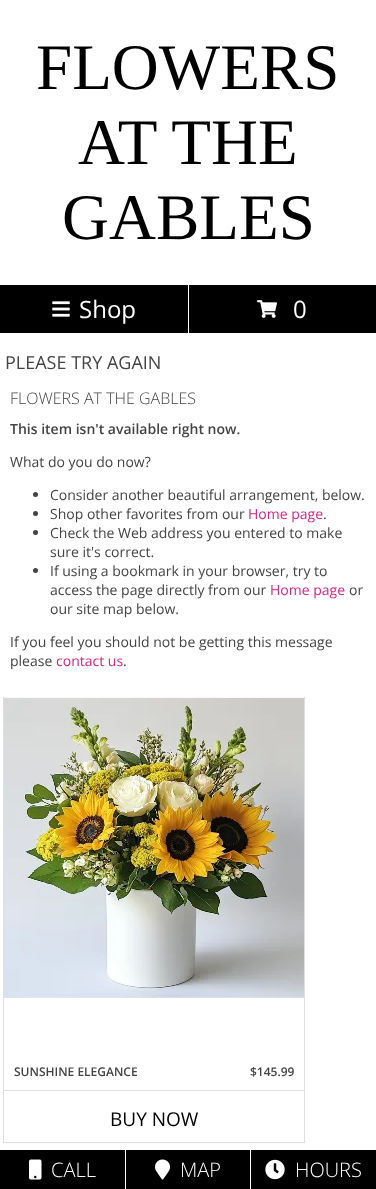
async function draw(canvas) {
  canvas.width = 376;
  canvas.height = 1189;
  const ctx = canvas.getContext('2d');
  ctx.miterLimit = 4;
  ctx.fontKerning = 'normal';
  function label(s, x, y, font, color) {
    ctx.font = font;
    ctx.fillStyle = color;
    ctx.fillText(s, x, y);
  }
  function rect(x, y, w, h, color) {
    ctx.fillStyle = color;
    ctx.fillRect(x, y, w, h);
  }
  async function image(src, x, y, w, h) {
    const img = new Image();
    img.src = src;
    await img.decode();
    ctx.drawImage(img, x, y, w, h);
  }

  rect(0, 0, 376, 1189, '#fff');
  label('FLOWERS', 36, 89, '65px Liberation Serif', '#000');
  label('AT THE', 78, 164, '65px Liberation Serif', '#000');
  label('GABLES', 62, 239, '65px Liberation Serif', '#000');
  rect(0, 285, 188, 48, '#000');
  await image('assets/img1.png', 52, 301, 18, 16);
  label('Shop', 79, 318, '24px Open Sans', '#fff');
  rect(189, 285, 187, 48, '#000');
  await image('assets/img2.png', 257, 300, 20, 18);
  label('0', 293, 318, '24px Open Sans', '#fff');
  label('PLEASE TRY AGAIN', 5, 369, '18px Open Sans', '#444');
  label('FLOWERS AT THE GABLES', 10, 404, '300 16px Open Sans', '#444');
  label('This item isn\'t available right now.', 10, 434, '600 14px Open Sans', '#444');
  label('What do you do now?', 10, 467, '14px Open Sans', '#444');
  ctx.beginPath();
  ctx.arc(35.5, 494.5, 2.5, 0, 2 * Math.PI);
  ctx.fill();
  label('Consider another beautiful arrangement, below.', 50, 500, '14px Open Sans', '#444');
  ctx.beginPath();
  ctx.arc(35.5, 513.5, 2.5, 0, 2 * Math.PI);
  ctx.fill();
  label('Shop other favorites from our', 50, 519, '14px Open Sans', '#444');
  label('Home page', 248, 519, '14px Open Sans', '#cd2985');
  label('.', 323, 519, '14px Open Sans', '#444');
  ctx.beginPath();
  ctx.arc(35.5, 532.5, 2.5, 0, 2 * Math.PI);
  ctx.fill();
  label('Check the Web address you entered to make', 50, 538, '14px Open Sans', '#444');
  label('sure it\'s correct.', 50, 557, '14px Open Sans', '#444');
  ctx.beginPath();
  ctx.arc(35.5, 570.5, 2.5, 0, 2 * Math.PI);
  ctx.fill();
  label('If using a bookmark in your browser, try to', 50, 576, '14px Open Sans', '#444');
  label('access the page directly from our', 50, 595, '14px Open Sans', '#444');
  label('Home page', 270, 595, '14px Open Sans', '#cd2985');
  label('or', 349, 595, '14px Open Sans', '#444');
  label('our site map below.', 50, 614, '14px Open Sans', '#444');
  label('If you feel you should not be getting this message', 10, 647, '14px Open Sans', '#444');
  label('please', 10, 666, '14px Open Sans', '#444');
  label('contact us', 56, 666, '14px Open Sans', '#cd2985');
  label('.', 123, 666, '14px Open Sans', '#444');
  rect(3, 697, 302, 1, '#f9f9f9');
  rect(304, 697, 1, 446, '#e2dedd');
  rect(3, 1142, 302, 1, '#e2dedd');
  rect(3, 697, 1, 446, '#e2dedd');
  await image('assets/img3.png', 4, 698, 300, 300);
  label('SUNSHINE ELEGANCE', 14, 1076, '600 12px Open Sans', '#444');
  label('$145.99', 250, 1076, '600 12px Open Sans', '#444');
  rect(4, 1090, 300, 1, '#e2dedd');
  label('BUY NOW', 110, 1126, '19px Open Sans', '#000');
  rect(0, 1150, 125, 39, '#000');
  await image('assets/img4.png', 29, 1159, 13, 21);
  label('CALL', 51, 1177, '300 20px Open Sans', '#fff');
  rect(126, 1150, 124, 39, '#000');
  await image('assets/img5.png', 155, 1159, 15, 21);
  label('MAP', 180, 1177, '300 20px Open Sans', '#fff');
  rect(251, 1150, 125, 39, '#000');
  await image('assets/img6.png', 265, 1159, 20, 21);
  label('HOURS', 295, 1177, '300 20px Open Sans', '#fff');
}

draw(document.querySelector('canvas'));
